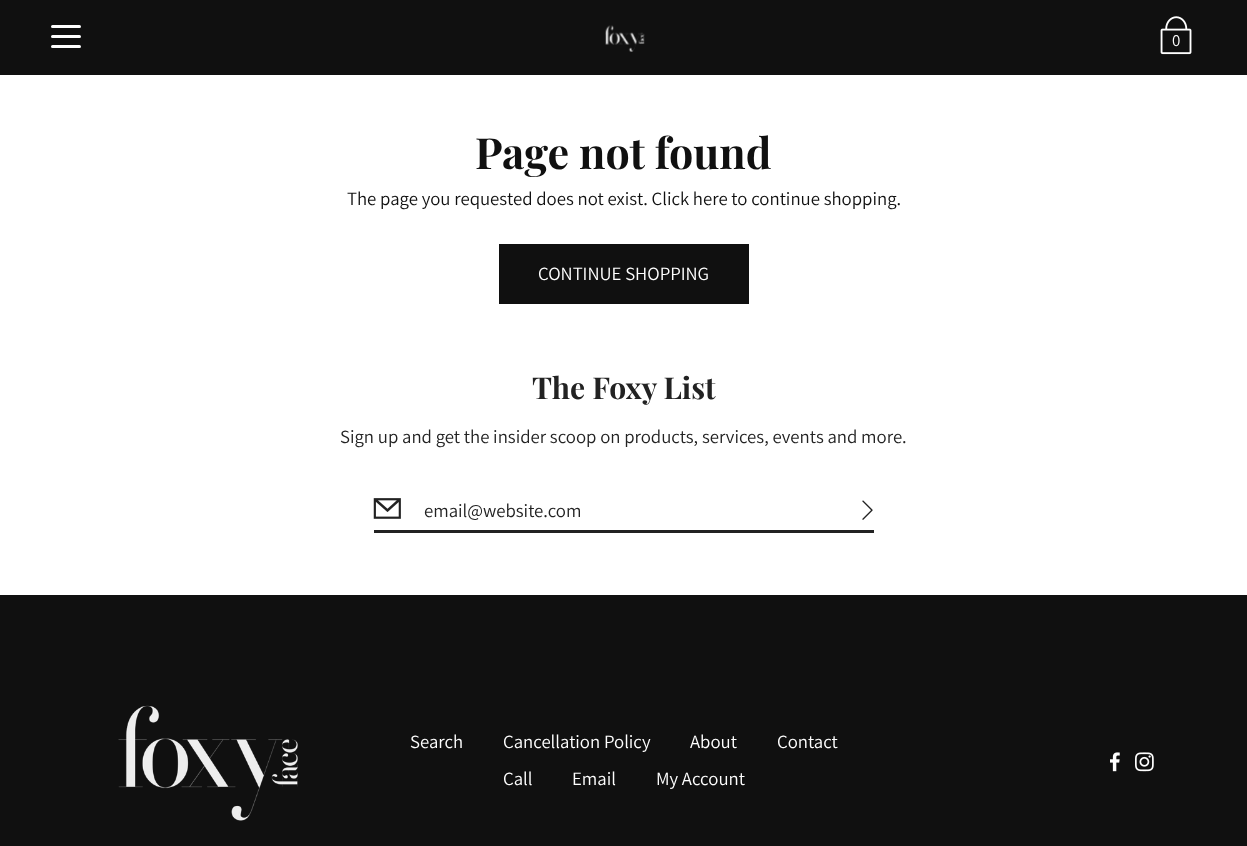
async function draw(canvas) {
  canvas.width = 1247;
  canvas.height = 846;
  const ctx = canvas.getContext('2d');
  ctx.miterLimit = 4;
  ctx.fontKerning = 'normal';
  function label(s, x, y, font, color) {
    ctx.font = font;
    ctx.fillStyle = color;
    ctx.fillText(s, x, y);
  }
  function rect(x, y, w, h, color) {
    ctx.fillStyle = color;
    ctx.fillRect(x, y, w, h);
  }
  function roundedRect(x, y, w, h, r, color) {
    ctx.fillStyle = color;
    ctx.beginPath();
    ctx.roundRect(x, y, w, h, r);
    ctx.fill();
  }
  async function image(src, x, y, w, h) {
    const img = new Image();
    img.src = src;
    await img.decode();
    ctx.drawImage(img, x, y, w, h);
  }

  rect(0, 0, 1247, 846, '#fff');
  rect(0, 0, 1247, 75, '#101010');
  await image('assets/img1.png', 605, 25, 40, 27);
  roundedRect(51, 35, 30, 3, 1.5, '#fff');
  roundedRect(51, 25, 30, 3, 1.5, '#fff');
  roundedRect(51, 45, 30, 3, 1.5, '#fff');
  await image('assets/img2.png', 1160, 16, 32, 39);
  label('0', 1172, 46, '17px Assistant', '#fff');
  label('Page not found', 475, 169, 'bold 43px Playfair Display', '#101010');
  label('The page you requested does not exist. Click here to continue shopping.', 347, 205, '18.75px Assistant', '#101010');
  rect(499, 244, 250, 60, '#101010');
  label('CONTINUE SHOPPING', 538, 280, '18.75px Assistant', '#fff');
  label('The Foxy List', 532, 399, 'bold 30px Playfair Display', '#222');
  label('Sign up and get the insider scoop on products, services, events and more.', 340, 443, '18.75px Assistant', '#222');
  rect(374, 530, 500, 3, '#222');
  await image('assets/img3.png', 373, 498, 28, 21);
  label('email@website.com', 424, 517, '18.75px Assistant', '#222');
  await image('assets/img4.png', 862, 500, 11, 20);
  rect(0, 595, 1247, 251, '#101010');
  await image('assets/img5.png', 118, 705, 180, 116);
  label('Search', 410, 748, '18.75px Assistant', '#fff');
  label('Cancellation Policy', 503, 748, '18.75px Assistant', '#fff');
  label('About', 690, 748, '18.75px Assistant', '#fff');
  label('Contact', 777, 748, '18.75px Assistant', '#fff');
  label('Call', 503, 785, '18.75px Assistant', '#fff');
  label('Email', 572, 785, '18.75px Assistant', '#fff');
  label('My Account', 656, 785, '18.75px Assistant', '#fff');
  await image('assets/img6.png', 1110, 752, 10, 20);
  await image('assets/img7.png', 1135, 752, 19, 20);
}

draw(document.querySelector('canvas'));
